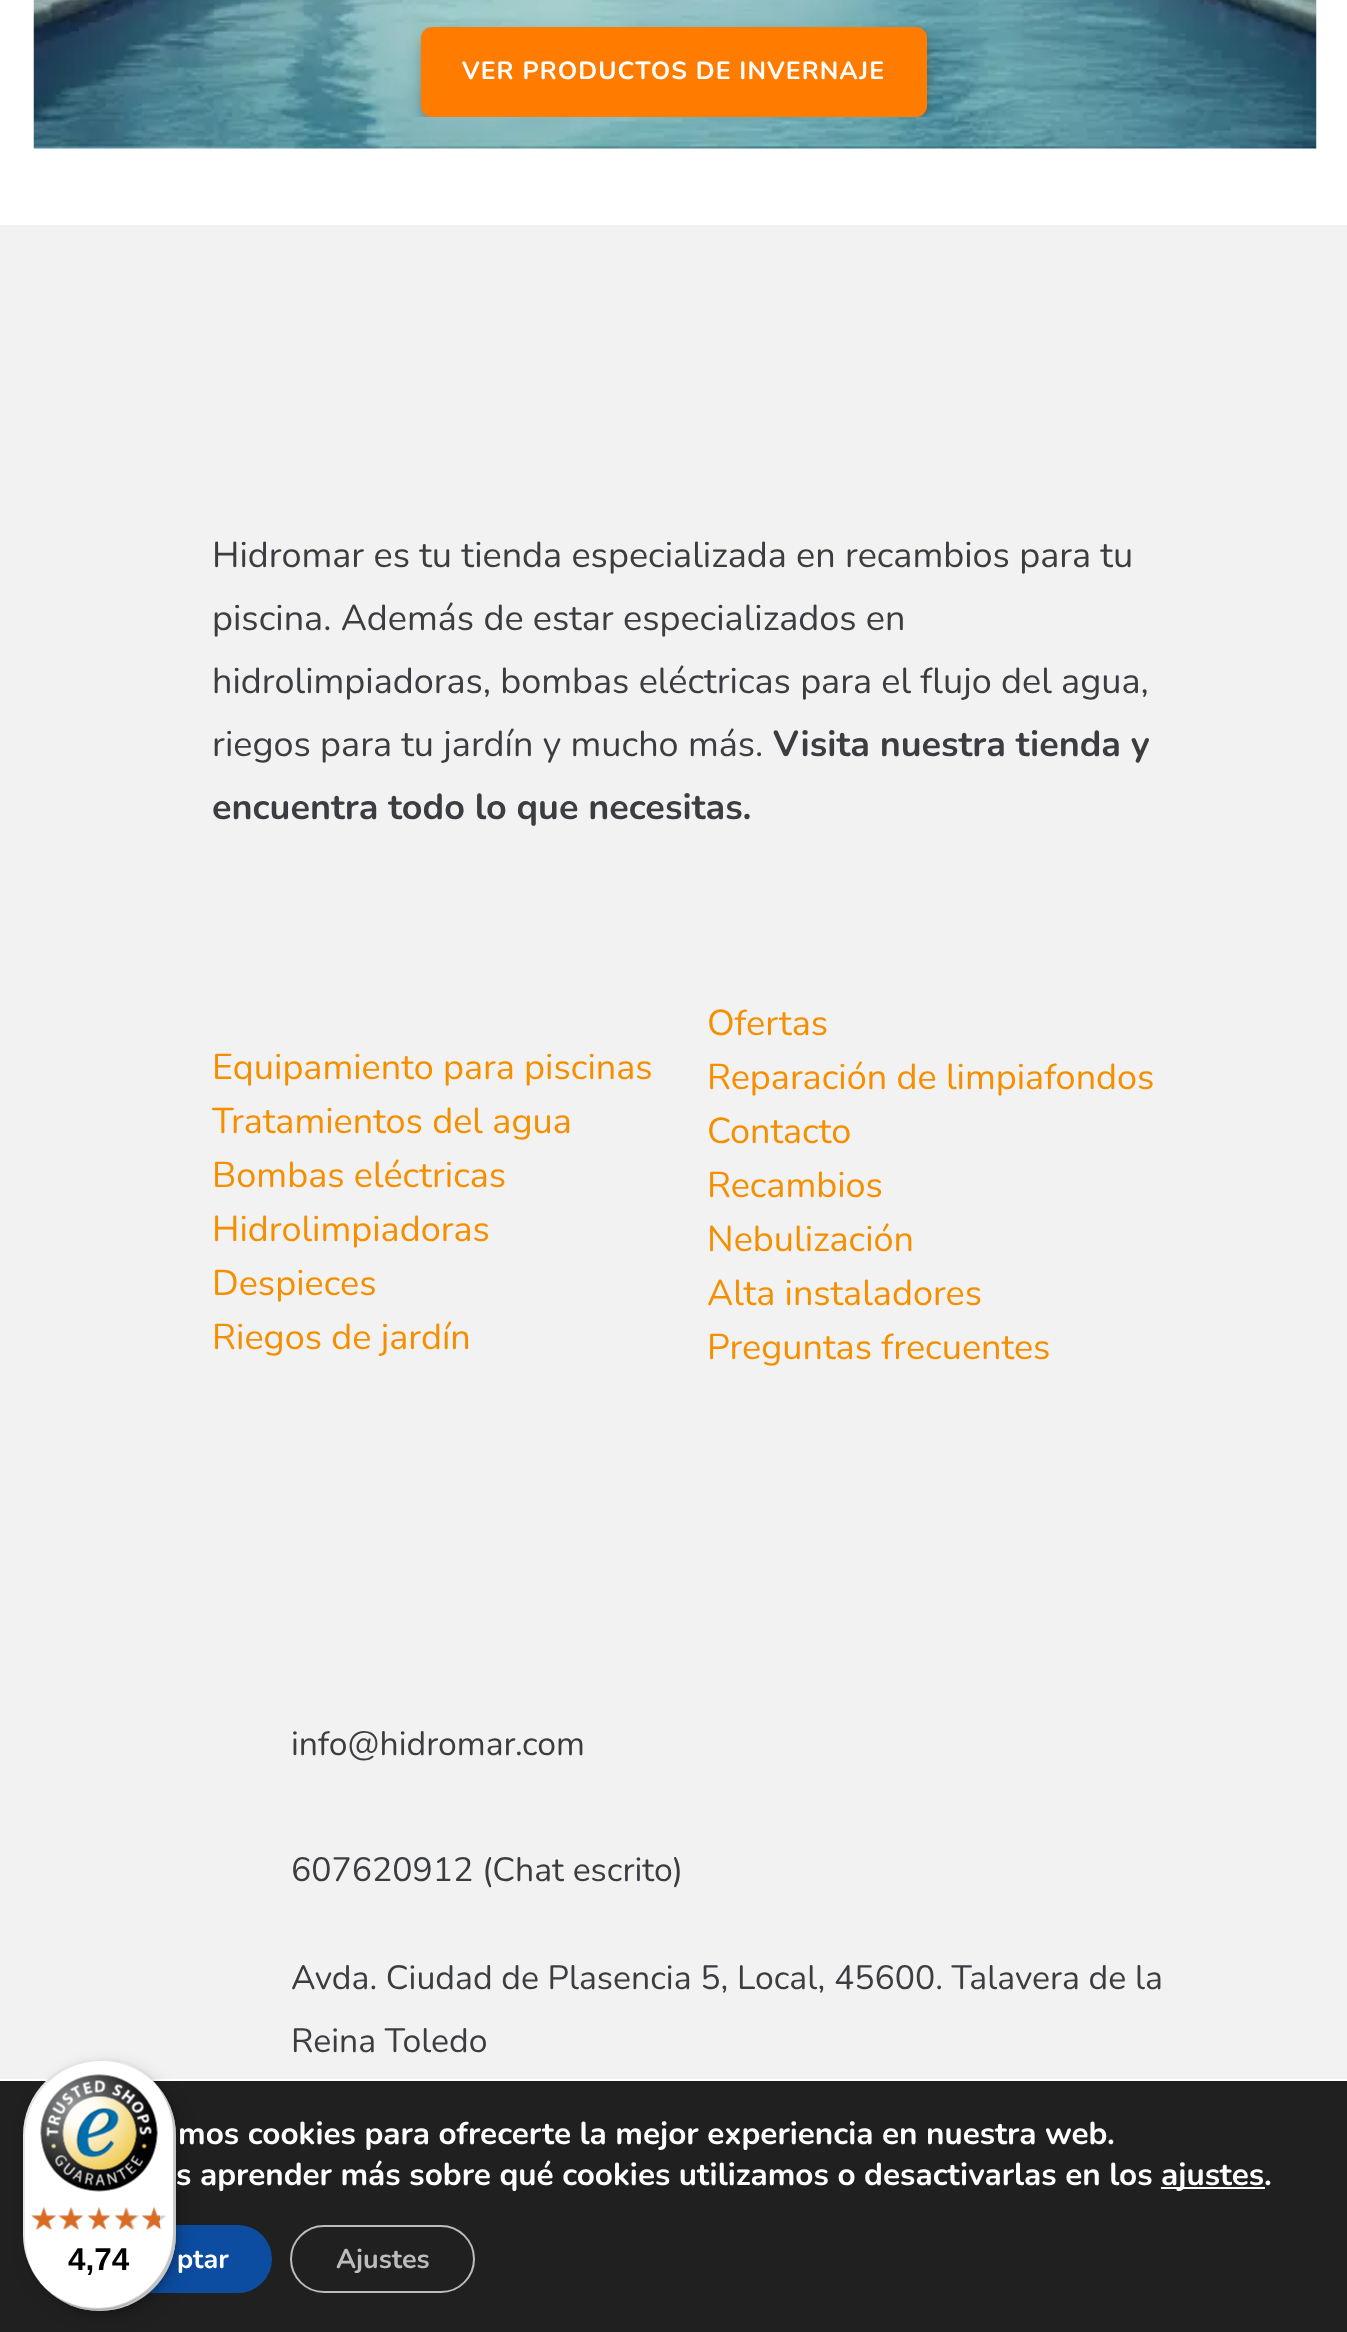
async function draw(canvas) {
  canvas.width = 1347;
  canvas.height = 2332;
  const ctx = canvas.getContext('2d');
  ctx.miterLimit = 4;
  ctx.fontKerning = 'normal';
  function label(s, x, y, font, color) {
    ctx.font = font;
    ctx.fillStyle = color;
    ctx.fillText(s, x, y);
  }
  function rect(x, y, w, h, color) {
    ctx.fillStyle = color;
    ctx.fillRect(x, y, w, h);
  }
  function roundedRect(x, y, w, h, r, color) {
    ctx.fillStyle = color;
    ctx.beginPath();
    ctx.roundRect(x, y, w, h, r);
    ctx.fill();
  }
  async function image(src, x, y, w, h) {
    const img = new Image();
    img.src = src;
    await img.decode();
    ctx.drawImage(img, x, y, w, h);
  }
  let path;

  rect(0, 0, 1347, 2332, '#fff');
  await image('assets/img1.png', 33, 0, 1284, 149);
  ctx.save();
  ctx.beginPath();
  ctx.roundRect(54, -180, 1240, 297, 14);
  ctx.clip();
  ctx.fillStyle = '#00000040';
  ctx.filter = 'blur(7px)';
  ctx.beginPath();
  ctx.roundRect(421, 34, 506, 90, 11);
  ctx.fill();
  ctx.filter = 'none';
  ctx.restore();
  roundedRect(421, 27, 506, 90, 11, '#ff7c00');
  ctx.letterSpacing = '1.1px';
  label('VER PRODUCTOS DE INVERNAJE', 462, 79, 'bold 24.75px Nunito', '#fff');
  rect(0, 225, 1347, 1854, '#f2f2f2');
  ctx.letterSpacing = '0px';
  label('Hidromar es tu tienda especializada en recambios para tu', 212, 567, '36px Nunito', '#3b3d40');
  label('piscina. Además de estar especializados en', 212, 630, '36px Nunito', '#3b3d40');
  label('hidrolimpiadoras, bombas eléctricas para el flujo del agua,', 212, 693, '36px Nunito', '#3b3d40');
  label('riegos para tu jardín y mucho más.', 212, 756, '36px Nunito', '#3b3d40');
  label('Visita nuestra tienda y', 773, 756, 'bold 36px Nunito', '#3b3d40');
  label('encuentra todo lo que necesitas.', 212, 819, 'bold 36px Nunito', '#3b3d40');
  label('Equipamiento para piscinas', 212, 1079, '36px Nunito', '#f58f00');
  label('Tratamientos del agua', 212, 1133, '36px Nunito', '#f58f00');
  label('Bombas eléctricas', 212, 1187, '36px Nunito', '#f58f00');
  label('Hidrolimpiadoras', 212, 1241, '36px Nunito', '#f58f00');
  label('Despieces', 212, 1295, '36px Nunito', '#f58f00');
  label('Riegos de jardín', 212, 1349, '36px Nunito', '#f58f00');
  label('Ofertas', 707, 1035, '36px Nunito', '#f58f00');
  label('Reparación de limpiafondos', 707, 1089, '36px Nunito', '#f58f00');
  label('Contacto', 707, 1143, '36px Nunito', '#f58f00');
  label('Recambios', 707, 1197, '36px Nunito', '#f58f00');
  label('Nebulización', 707, 1251, '36px Nunito', '#f58f00');
  label('Alta instaladores', 707, 1305, '36px Nunito', '#f58f00');
  label('Preguntas frecuentes', 707, 1359, '36px Nunito', '#f58f00');
  label('info@hidromar.com', 291, 1755, '33.75px Nunito', '#3b3d40');
  label('607620912 (Chat escrito)', 291, 1881, '33.75px Nunito', '#3b3d40');
  label('Avda. Ciudad de Plasencia 5, Local, 45600. Talavera de la', 291, 1989, '33.75px Nunito', '#3b3d40');
  label('Reina Toledo', 291, 2052, '33.75px Nunito', '#3b3d40');
  rect(0, 2081, 1347, 251, '#202020');
  roundedRect(86, 2225, 186, 68, 34, '#0c4da2');
  ctx.fillStyle = '#00000026';
  ctx.filter = 'blur(9px)';
  ctx.beginPath();
  ctx.roundRect(29, 2066, 153, 252, 76.5);
  ctx.fill();
  ctx.filter = 'none';
  ctx.filter = 'blur(2px)';
  ctx.beginPath();
  ctx.roundRect(25, 2061, 153, 252, 76.5);
  ctx.fill();
  ctx.filter = 'none';
  roundedRect(23, 2059, 153, 252, 76.5, '#fff');
  ctx.fillStyle = '#0000001a';
  path = new Path2D('M101 2061C124 2061 144 2071 158 2087C144 2070 123 2059 100 2059C57 2059 23 2093 23 2136V2234C23 2255 31 2274 44 2287C32 2274 25 2256 25 2236V2138C25 2095 59 2061 101 2061Z');
  ctx.fill(path);
  ctx.fillStyle = '#00000033';
  path = new Path2D('M42 2285C56 2301 77 2311 100 2311C142 2311 176 2277 176 2234V2136C176 2113 166 2092 150 2078C164 2092 173 2112 173 2133V2232C173 2274 139 2308 97 2308C76 2308 56 2299 42 2285Z');
  ctx.fill(path);
  ctx.fillStyle = '#32323233';
  path = new Path2D('M47 2290C60 2303 79 2311 100 2311C142 2311 176 2277 176 2234V2136C176 2113 166 2092 150 2078C165 2092 174 2112 174 2134V2233C174 2275 140 2309 98 2309C78 2309 60 2302 47 2290Z');
  ctx.fill(path);
  ctx.fillStyle = '#ffffff4d';
  path = new Path2D('M51 2294C64 2304 81 2311 100 2311C142 2311 176 2277 176 2234V2136C176 2108 161 2083 139 2070C160 2083 174 2107 174 2134V2233C174 2275 140 2310 98 2310C80 2310 64 2304 51 2294Z');
  ctx.fill(path);
  await image('assets/img2.png', 40, 2074, 118, 118);
  await image('assets/img3.png', 31, 2207, 25, 23);
  await image('assets/img4.png', 61, 2207, 22, 23);
  await image('assets/img5.png', 88, 2207, 22, 23);
  await image('assets/img6.png', 115, 2207, 25, 23);
  await image('assets/img7.png', 142, 2207, 25, 23);
  await image('assets/img8.png', 31, 2207, 26, 23);
  await image('assets/img9.png', 58, 2207, 26, 23);
  await image('assets/img10.png', 87, 2207, 24, 23);
  await image('assets/img11.png', 114, 2207, 24, 23);
  await image('assets/img12.png', 141, 2207, 19, 23);
  label('4,74', 68, 2270, 'bold 31.5px Liberation Sans', '#000');
  label('mos cookies para ofrecerte la mejor experiencia en nuestra web.', 178, 2144, 'bold 31.5px Nunito', '#fff');
  label('s aprender más sobre qué cookies utilizamos o desactivarlas en los', 176, 2185, 'bold 31.5px Nunito', '#fff');
  rect(1161, 2187, 104, 2, '#fff');
  label('ajustes.', 1161, 2185, 'bold 31.5px Nunito', '#fff');
  label('ptar', 177, 2268, 'bold 27px Nunito', '#fff');
  ctx.beginPath();
  ctx.roundRect(291, 2226, 183, 66, 33);
  ctx.strokeStyle = '#bcbcbc';
  ctx.lineWidth = 2;
  ctx.stroke();
  label('Ajustes', 336, 2268, 'bold 27px Nunito', '#bcbcbc');
}

draw(document.querySelector('canvas'));
